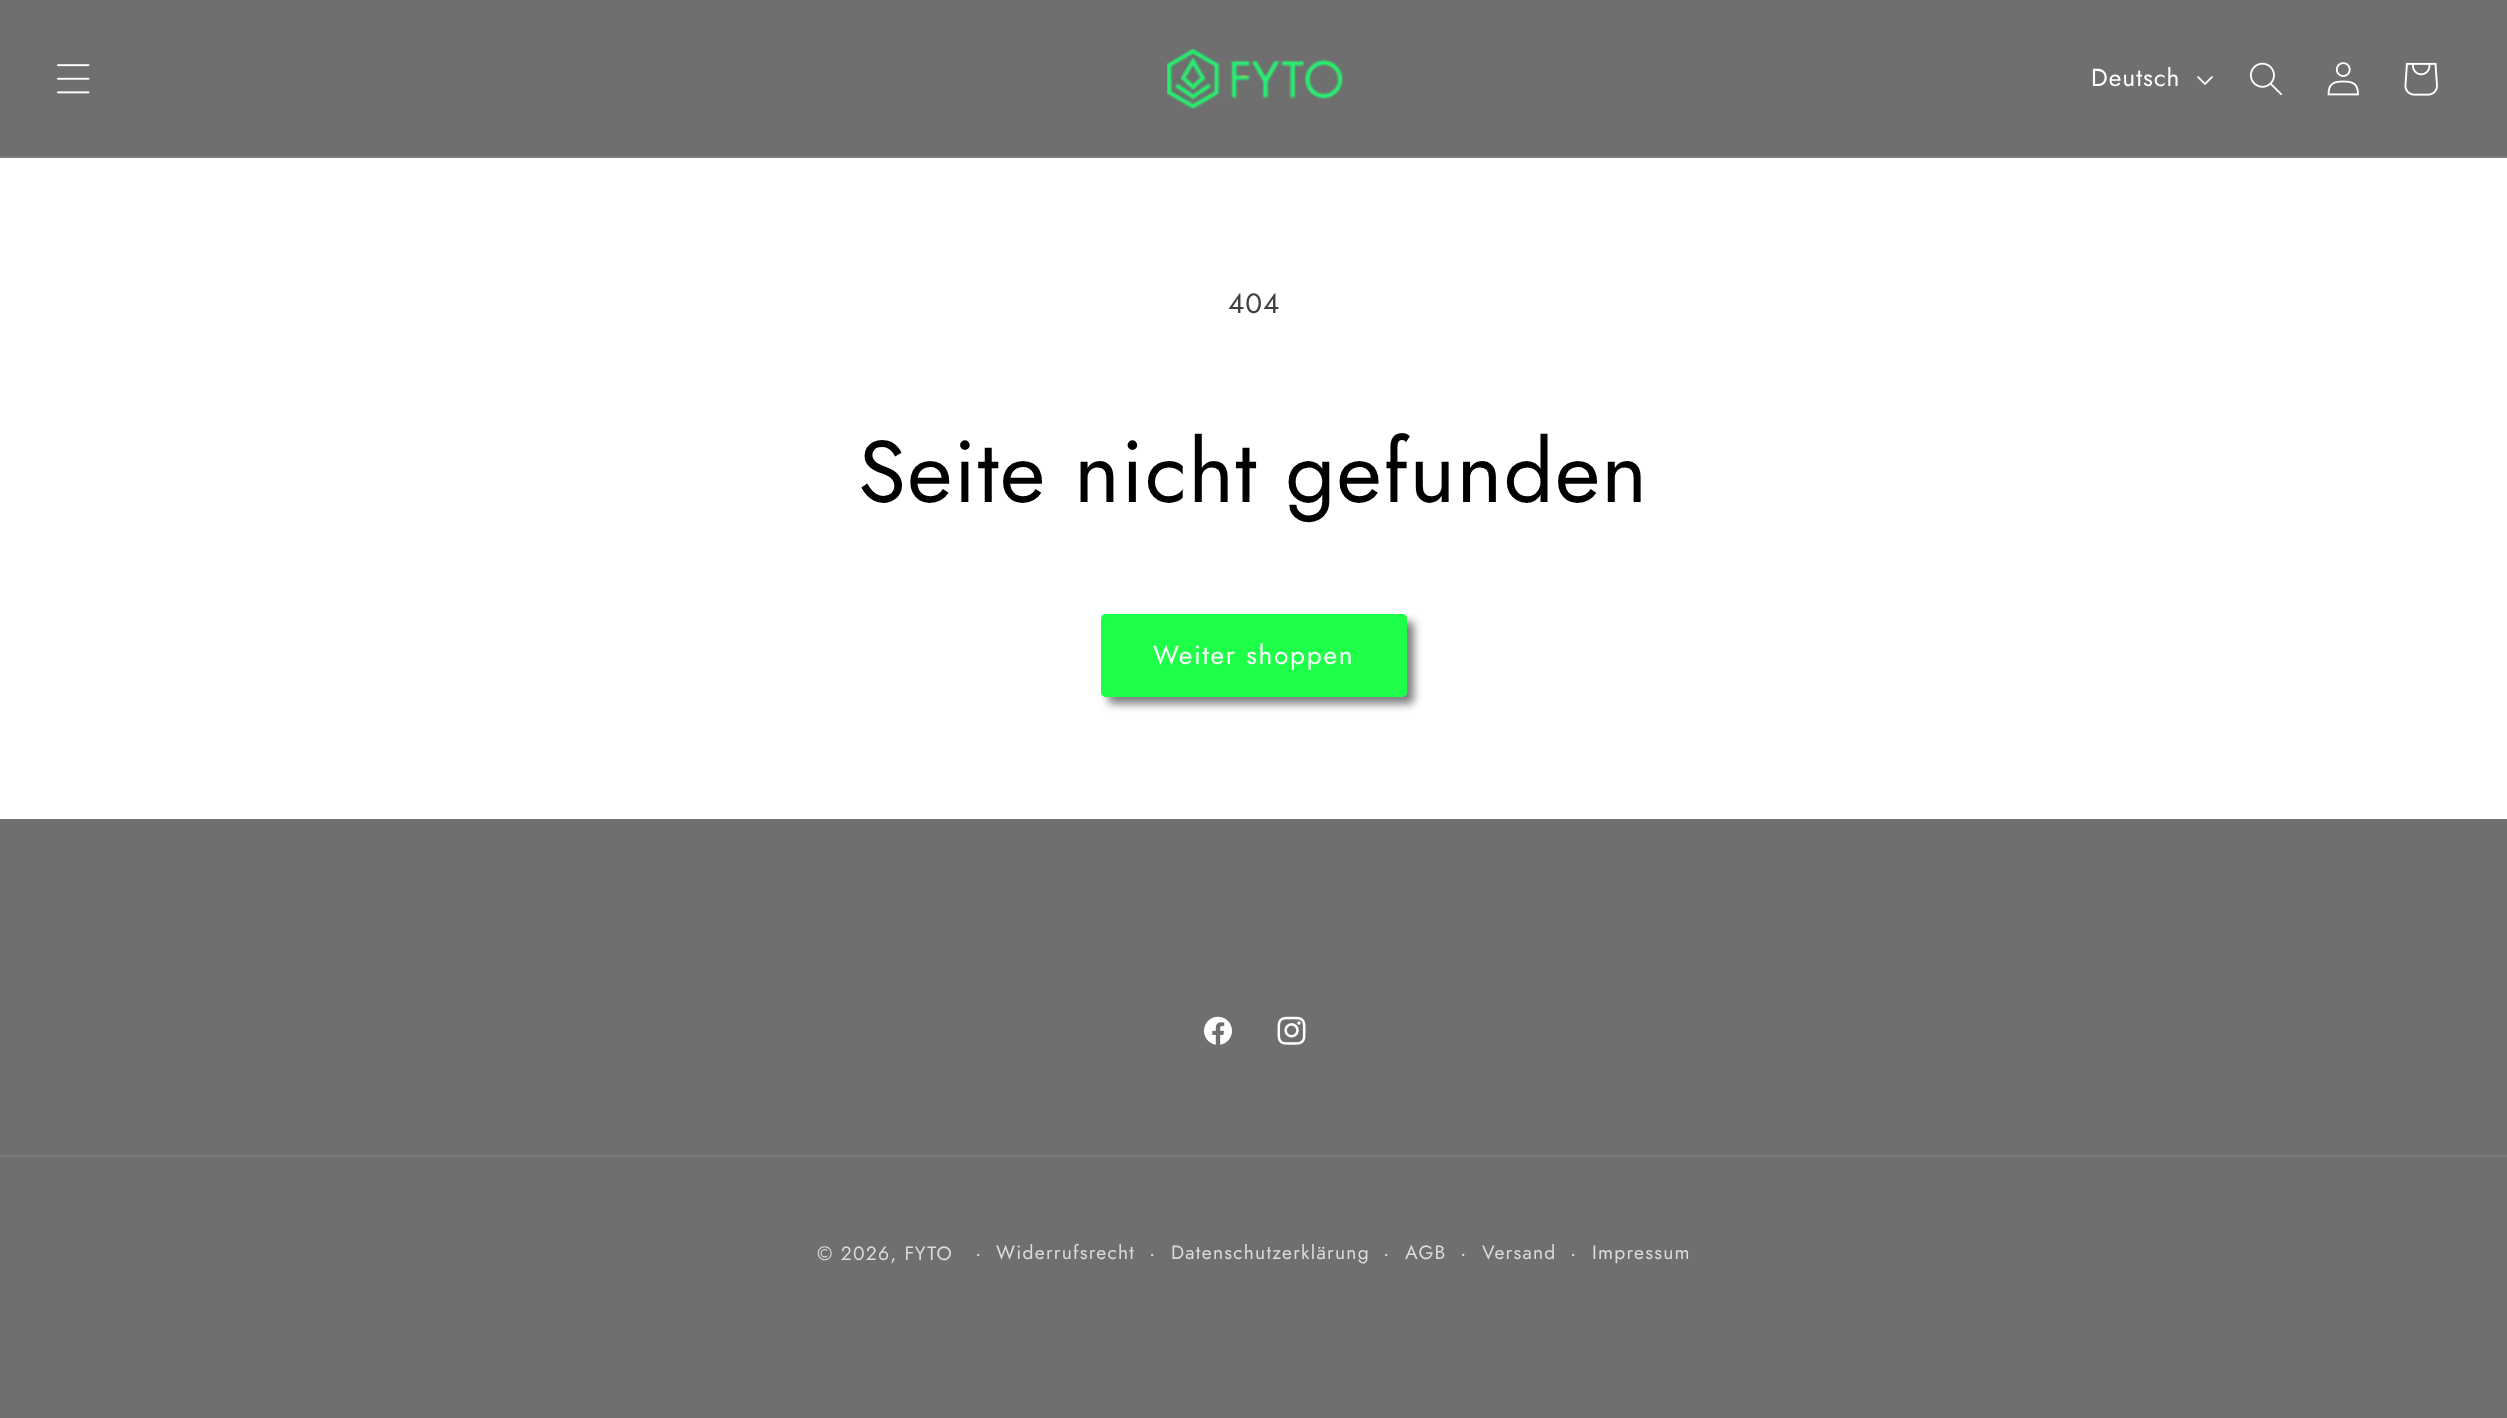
async function draw(canvas) {
  canvas.width = 2507;
  canvas.height = 1418;
  const ctx = canvas.getContext('2d');
  ctx.miterLimit = 4;
  ctx.fontKerning = 'normal';
  function label(s, x, y, font, color) {
    ctx.font = font;
    ctx.fillStyle = color;
    ctx.fillText(s, x, y);
  }
  function rect(x, y, w, h, color) {
    ctx.fillStyle = color;
    ctx.fillRect(x, y, w, h);
  }
  function roundedRect(x, y, w, h, r, color) {
    ctx.fillStyle = color;
    ctx.beginPath();
    ctx.roundRect(x, y, w, h, r);
    ctx.fill();
  }
  async function image(src, x, y, w, h) {
    const img = new Image();
    img.src = src;
    await img.decode();
    ctx.drawImage(img, x, y, w, h);
  }

  rect(0, 0, 2507, 1418, '#fff');
  rect(0, 0, 2507, 156, '#6f6f6f');
  rect(0, 156, 2507, 2, '#7b7b7b');
  await image('assets/img1.png', 57, 64, 33, 30);
  await image('assets/img2.png', 1167, 49, 176, 60);
  ctx.letterSpacing = '1px';
  label('Deutsch', 2091, 86, '24.5px Jost', '#fff');
  await image('assets/img3.png', 2197, 76, 16, 9);
  await image('assets/img4.png', 2250, 62, 32, 33);
  await image('assets/img5.png', 2327, 62, 32, 34);
  await image('assets/img6.png', 2404, 62, 34, 34);
  label('404', 1228, 313, '28px Jost', '#404040');
  ctx.letterSpacing = '1.3px';
  label('Seite nicht gefunden', 858, 502, '87.5px Jost', '#000');
  ctx.fillStyle = '#00000080';
  ctx.filter = 'blur(4.5px)';
  ctx.beginPath();
  ctx.roundRect(1108, 621, 306, 83, 5);
  ctx.fill();
  ctx.filter = 'none';
  roundedRect(1101, 614, 306, 83, 5, '#1dff49');
  ctx.beginPath();
  ctx.roundRect(1102, 615, 304, 81, 4);
  ctx.strokeStyle = '#1dff49';
  ctx.lineWidth = 2;
  ctx.stroke();
  ctx.letterSpacing = '1.75px';
  label('Weiter shoppen', 1153, 664, '26.25px Jost', '#fff');
  rect(0, 819, 2507, 599, '#6f6f6f');
  await image('assets/img7.png', 1204, 1016, 28, 29);
  await image('assets/img8.png', 1277, 1016, 29, 29);
  rect(0, 1155, 2507, 2, '#7b7b7b');
  ctx.letterSpacing = '1.25px';
  label('© 2026, FYTO', 817, 1260, '19.25px Jost', '#dbdbdb');
  label('·', 975, 1260, '21px Jost', '#dbdbdb');
  label('Widerrufsrecht', 996, 1259, '19.25px Jost', '#dbdbdb');
  label('·', 1149, 1260, '21px Jost', '#dbdbdb');
  label('Datenschutzerklärung', 1171, 1259, '19.25px Jost', '#dbdbdb');
  label('·', 1383, 1260, '21px Jost', '#dbdbdb');
  label('AGB', 1405, 1259, '19.25px Jost', '#dbdbdb');
  label('·', 1460, 1260, '21px Jost', '#dbdbdb');
  label('Versand', 1482, 1259, '19.25px Jost', '#dbdbdb');
  label('·', 1570, 1260, '21px Jost', '#dbdbdb');
  label('Impressum', 1592, 1259, '19.25px Jost', '#dbdbdb');
}

draw(document.querySelector('canvas'));
